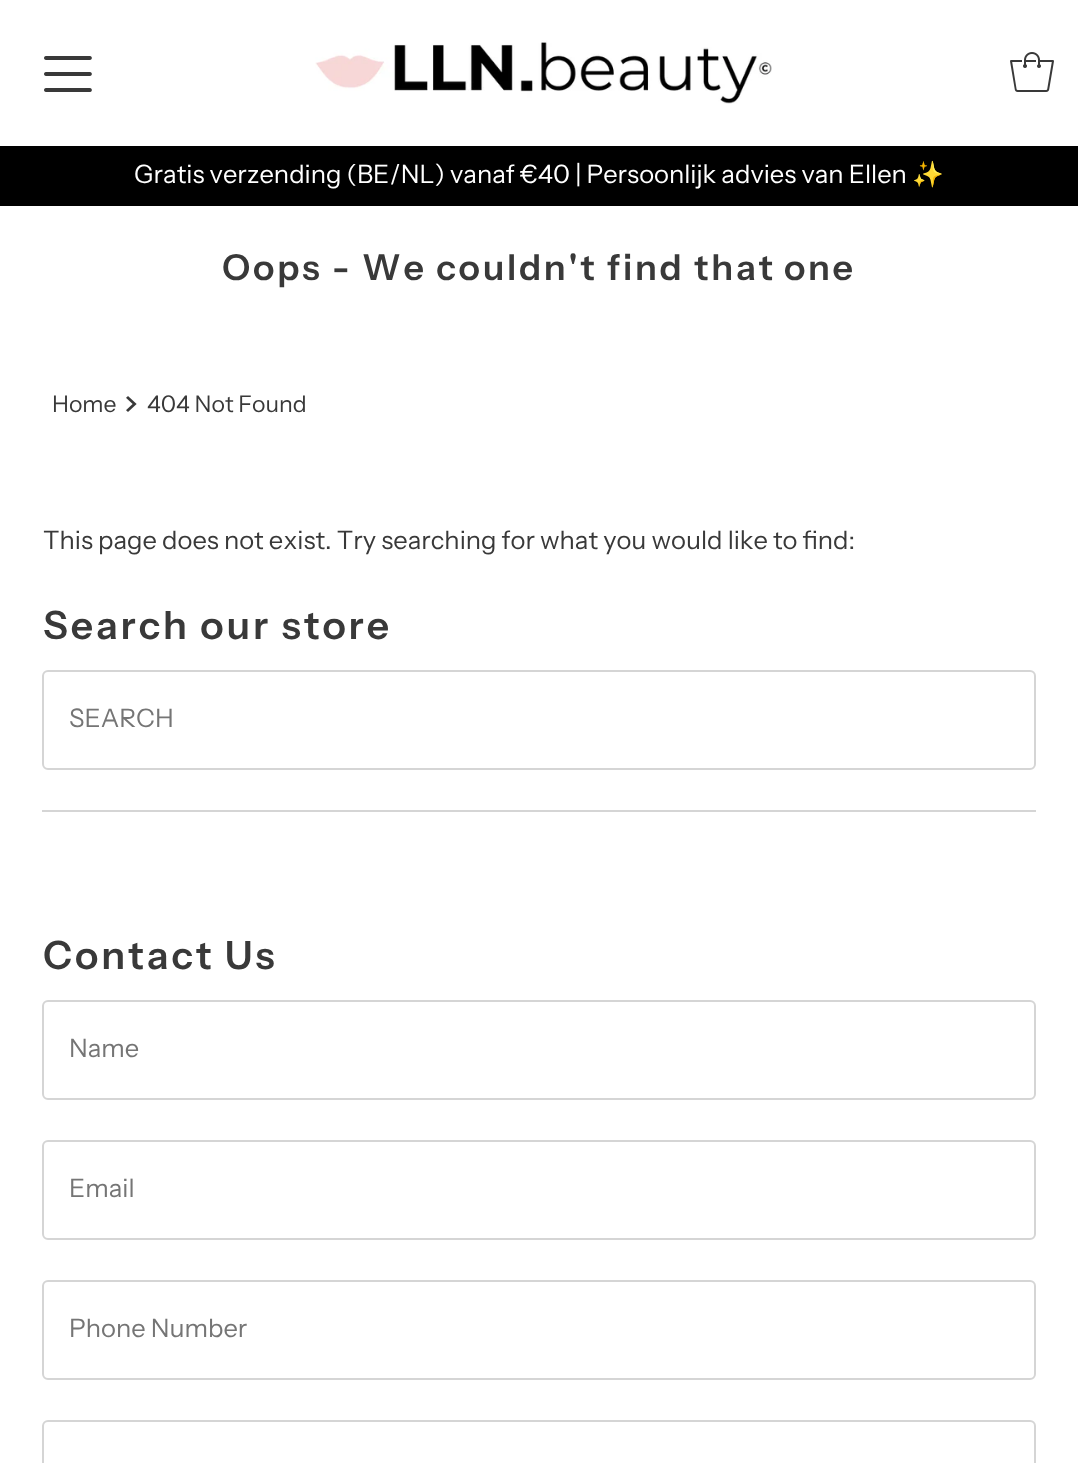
async function draw(canvas) {
  canvas.width = 1078;
  canvas.height = 1463;
  const ctx = canvas.getContext('2d');
  ctx.miterLimit = 4;
  ctx.fontKerning = 'none';
  function label(s, x, y, font, color) {
    ctx.font = font;
    ctx.fillStyle = color;
    ctx.fillText(s, x, y);
  }
  function rect(x, y, w, h, color) {
    ctx.fillStyle = color;
    ctx.fillRect(x, y, w, h);
  }
  async function image(src, x, y, w, h) {
    const img = new Image();
    img.src = src;
    await img.decode();
    ctx.drawImage(img, x, y, w, h);
  }

  rect(0, 0, 1078, 1463, '#fff');
  await image('assets/img1.png', 44, 56, 48, 36);
  await image('assets/img2.png', 315, 40, 457, 64);
  await image('assets/img3.png', 1010, 52, 44, 40);
  rect(0, 146, 1078, 60, '#000');
  label('Gratis verzending (BE/NL)', 134, 183, '25.5px Instrument Sans', '#fff');
  label('vanaf €40 | Persoonlijk advies van Ellen', 450, 183, '25.5px Instrument Sans', '#fff');
  label('✨', 912, 183, '25.5px Noto Color Emoji', '#fff');
  ctx.letterSpacing = '2.7px';
  label('Oops - We couldn\'t find that', 222, 280, '600 35.75px Instrument Sans', '#393939');
  label('one', 784, 280, '600 35.75px Instrument Sans', '#393939');
  ctx.letterSpacing = '0px';
  label('Home', 52, 412, '23px Instrument Sans', '#393939');
  await image('assets/img4.png', 126, 396, 11, 16);
  label('404 Not Found', 147, 412, '23px Instrument Sans', '#393939');
  label('This page does not exist. Try searching for', 43, 549, '25.5px Instrument Sans', '#393939');
  label('what you would like to find:', 540, 549, '25.5px Instrument Sans', '#393939');
  rect(42, 810, 994, 2, '#d5d5d5');
  ctx.letterSpacing = '2.9px';
  label('Search our store', 43, 639, '600 39px Instrument Sans', '#393939');
  ctx.beginPath();
  ctx.roundRect(43, 671, 992, 98, 5);
  ctx.strokeStyle = '#d5d5d5';
  ctx.lineWidth = 2;
  ctx.stroke();
  ctx.letterSpacing = '0px';
  label('SEARCH', 69, 727, '25.5px Instrument Sans', '#757575');
  ctx.letterSpacing = '2.9px';
  label('Contact Us', 43, 969, '600 39px Instrument Sans', '#393939');
  ctx.beginPath();
  ctx.roundRect(43, 1001, 992, 98, 5);
  ctx.stroke();
  ctx.letterSpacing = '0px';
  label('Name', 69, 1057, '25.5px Instrument Sans', '#757575');
  ctx.beginPath();
  ctx.roundRect(43, 1141, 992, 98, 5);
  ctx.stroke();
  label('Email', 69, 1197, '25.5px Instrument Sans', '#757575');
  ctx.beginPath();
  ctx.roundRect(43, 1281, 992, 98, 5);
  ctx.stroke();
  label('Phone Number', 69, 1337, '25.5px Instrument Sans', '#757575');
  ctx.beginPath();
  ctx.roundRect(43, 1421, 992, 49, 5);
  ctx.stroke();
}

draw(document.querySelector('canvas'));
